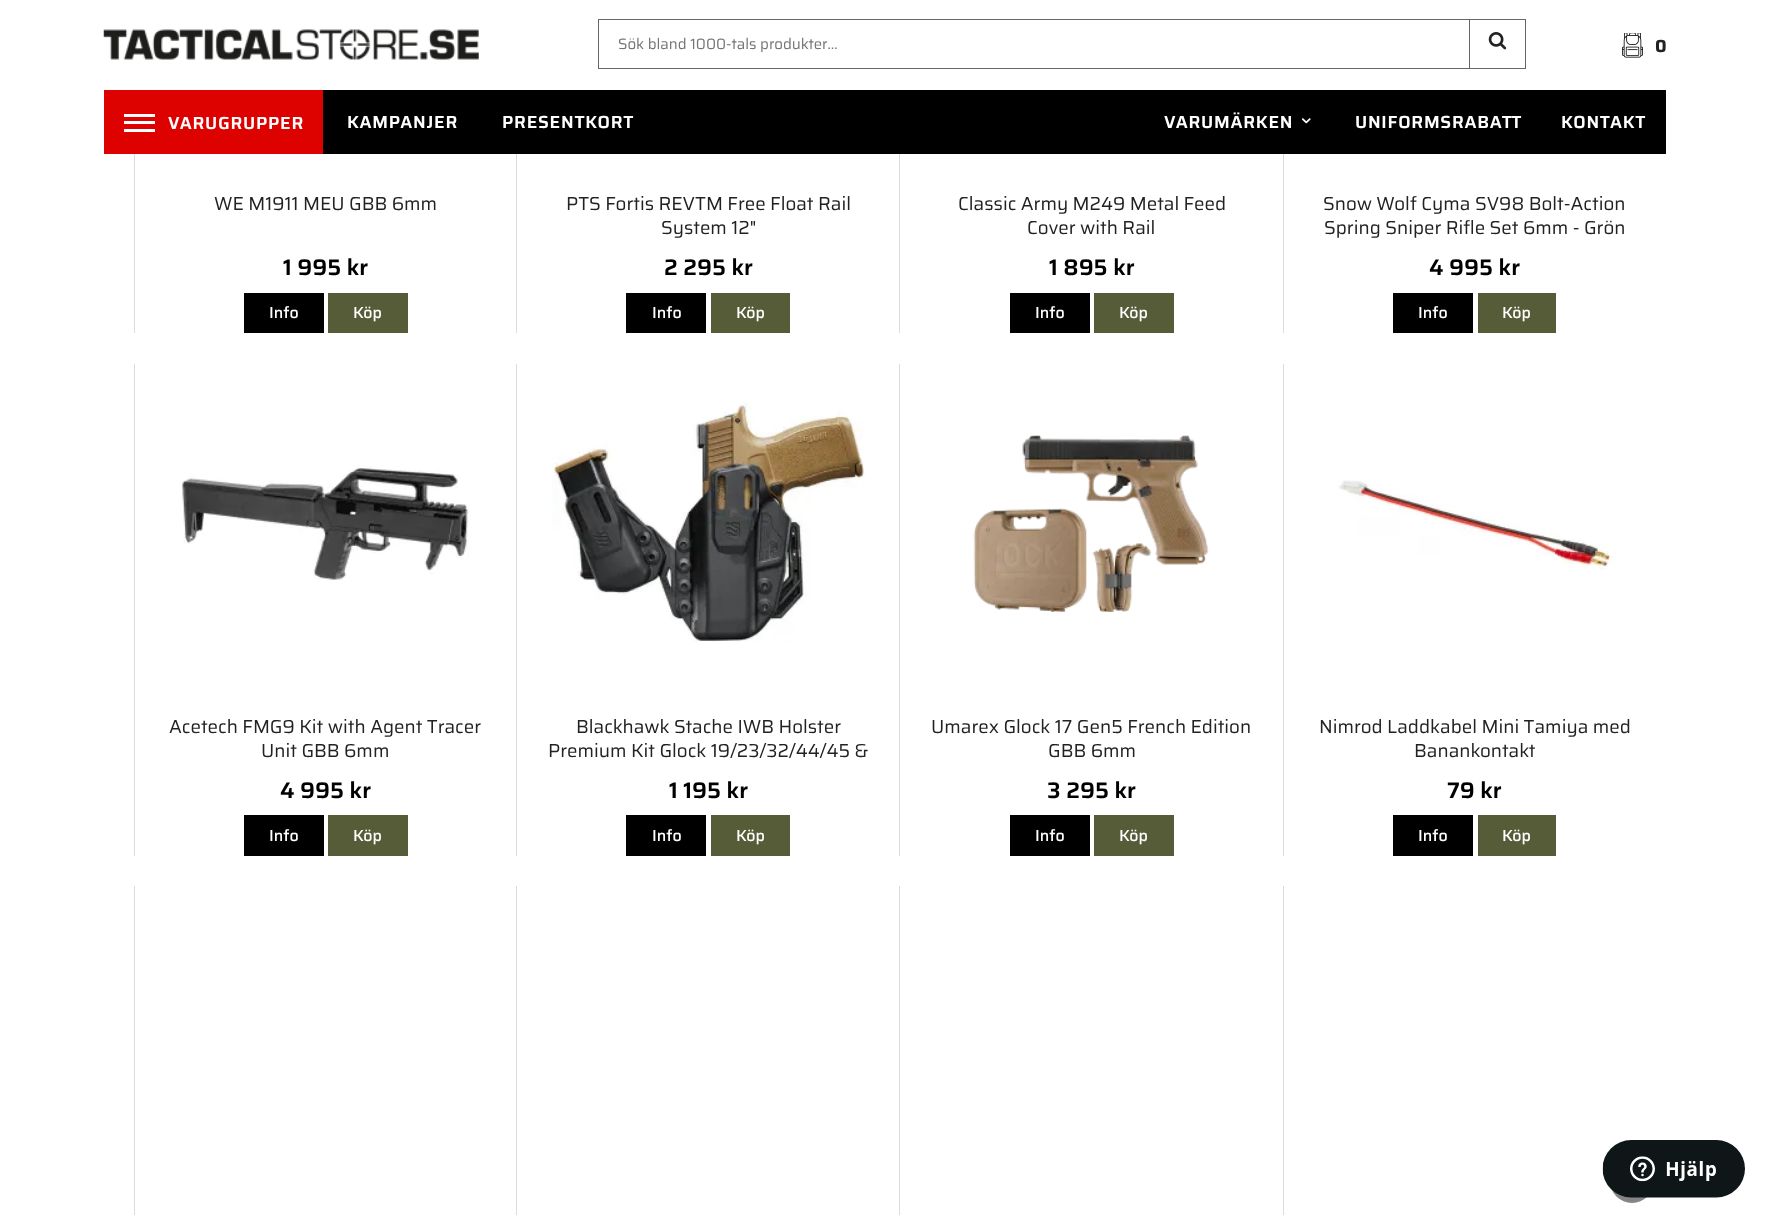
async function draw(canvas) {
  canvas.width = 1769;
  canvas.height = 1215;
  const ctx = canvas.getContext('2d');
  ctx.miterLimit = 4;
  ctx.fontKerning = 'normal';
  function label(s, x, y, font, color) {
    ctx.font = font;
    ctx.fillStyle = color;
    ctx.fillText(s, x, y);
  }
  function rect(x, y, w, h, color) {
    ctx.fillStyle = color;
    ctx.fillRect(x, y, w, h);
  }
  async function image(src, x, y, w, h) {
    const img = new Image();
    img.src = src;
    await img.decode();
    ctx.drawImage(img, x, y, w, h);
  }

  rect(0, 0, 1769, 1215, '#fff');
  await image('assets/img1.png', 103, 29, 376, 31);
  ctx.strokeStyle = '#666';
  ctx.strokeRect(598.5, 19.5, 871, 49);
  label('Sök bland 1000-tals produkter…', 618, 49, '15px Saira', '#757575');
  rect(1470, 19, 56, 1, '#666');
  rect(1525, 19, 1, 50, '#666');
  rect(1470, 68, 56, 1, '#666');
  await image('assets/img2.png', 1488, 32, 19, 18);
  await image('assets/img3.png', 1622, 33, 21, 25);
  label('0', 1655, 52, 'bold 17.5px Saira', '#222');
  rect(323, 90, 1343, 64, '#000');
  rect(104, 90, 219, 64, '#dd0200');
  rect(124, 114, 31, 3, '#fff');
  rect(124, 121, 31, 3, '#fff');
  rect(124, 129, 31, 3, '#fff');
  ctx.letterSpacing = '0.75px';
  label('VARUGRUPPER', 168, 129, '600 17.5px Saira', '#fff');
  label('KAMPANJER', 347, 128, '600 17.5px Saira', '#fff');
  label('PRESENTKORT', 502, 128, '600 17.5px Saira', '#fff');
  label('VARUMÄRKEN', 1164, 128, '600 17.5px Saira', '#fff');
  await image('assets/img4.png', 1302, 118, 9, 6);
  label('UNIFORMSRABATT', 1355, 128, '600 17.5px Saira', '#fff');
  label('KONTAKT', 1561, 128, '600 17.5px Saira', '#fff');
  rect(134, 154, 1, 179, '#dcdcdc');
  ctx.letterSpacing = '0px';
  label('WE M1911 MEU GBB 6mm', 214, 210, '18.75px Saira', '#222');
  label('1 995 kr', 283, 275, '600 22.5px Saira', '#000');
  rect(244, 293, 80, 40, '#000');
  label('Info', 269, 318, '500 16px Saira', '#fff');
  rect(328, 293, 80, 40, '#565c38');
  label('Köp', 353, 318, '500 16px Saira', '#fff');
  rect(516, 154, 1, 179, '#dcdcdc');
  label('PTS Fortis REVTM Free Float Rail', 566, 210, '18.75px Saira', '#222');
  label('System 12"', 661, 234, '18.75px Saira', '#222');
  label('2 295 kr', 664, 275, '600 22.5px Saira', '#000');
  rect(626, 293, 80, 40, '#000');
  label('Info', 652, 318, '500 16px Saira', '#fff');
  rect(711, 293, 79, 40, '#565c38');
  label('Köp', 736, 318, '500 16px Saira', '#fff');
  rect(899, 154, 1, 179, '#dcdcdc');
  label('Classic Army M249 Metal Feed', 958, 210, '18.75px Saira', '#222');
  label('Cover with Rail', 1027, 234, '18.75px Saira', '#222');
  label('1 895 kr', 1049, 275, '600 22.5px Saira', '#000');
  rect(1010, 293, 80, 40, '#000');
  label('Info', 1035, 318, '500 16px Saira', '#fff');
  rect(1094, 293, 80, 40, '#565c38');
  label('Köp', 1119, 318, '500 16px Saira', '#fff');
  rect(1283, 154, 1, 179, '#dcdcdc');
  label('Snow Wolf Cyma SV98 Bolt-Action', 1323, 210, '18.75px Saira', '#222');
  label('Spring Sniper Rifle Set 6mm - Grön', 1324, 234, '18.75px Saira', '#222');
  label('4 995 kr', 1429, 275, '600 22.5px Saira', '#000');
  rect(1393, 293, 80, 40, '#000');
  label('Info', 1418, 318, '500 16px Saira', '#fff');
  rect(1478, 293, 78, 40, '#565c38');
  label('Köp', 1502, 318, '500 16px Saira', '#fff');
  rect(134, 364, 1, 492, '#dcdcdc');
  await image('assets/img5.png', 180, 466, 289, 114);
  label('Acetech FMG9 Kit with Agent Tracer', 169, 733, '18.75px Saira', '#222');
  label('Unit GBB 6mm', 261, 757, '18.75px Saira', '#222');
  label('4 995 kr', 280, 798, '600 22.5px Saira', '#000');
  rect(244, 815, 80, 41, '#000');
  label('Info', 269, 841, '500 16px Saira', '#fff');
  rect(328, 815, 80, 41, '#565c38');
  label('Köp', 353, 841, '500 16px Saira', '#fff');
  rect(516, 364, 1, 492, '#dcdcdc');
  await image('assets/img6.png', 552, 402, 313, 240);
  label('Blackhawk Stache IWB Holster', 576, 733, '18.75px Saira', '#222');
  label('Premium Kit Glock 19/23/32/44/45 &', 548, 757, '18.75px Saira', '#222');
  label('1 195 kr', 669, 798, '600 22.5px Saira', '#000');
  rect(626, 815, 80, 41, '#000');
  label('Info', 652, 841, '500 16px Saira', '#fff');
  rect(711, 815, 79, 41, '#565c38');
  label('Köp', 736, 841, '500 16px Saira', '#fff');
  rect(899, 364, 1, 492, '#dcdcdc');
  await image('assets/img7.png', 973, 435, 236, 177);
  label('Umarex Glock 17 Gen5 French Edition', 931, 733, '18.75px Saira', '#222');
  label('GBB 6mm', 1048, 757, '18.75px Saira', '#222');
  label('3 295 kr', 1047, 798, '600 22.5px Saira', '#000');
  rect(1010, 815, 80, 41, '#000');
  label('Info', 1035, 841, '500 16px Saira', '#fff');
  rect(1094, 815, 80, 41, '#565c38');
  label('Köp', 1119, 841, '500 16px Saira', '#fff');
  rect(1283, 364, 1, 492, '#dcdcdc');
  await image('assets/img8.png', 1338, 480, 276, 90);
  label('Nimrod Laddkabel Mini Tamiya med', 1319, 733, '18.75px Saira', '#222');
  label('Banankontakt', 1414, 757, '18.75px Saira', '#222');
  label('79 kr', 1447, 798, '600 22.5px Saira', '#000');
  rect(1393, 815, 80, 41, '#000');
  label('Info', 1418, 841, '500 16px Saira', '#fff');
  rect(1478, 815, 78, 41, '#565c38');
  label('Köp', 1502, 841, '500 16px Saira', '#fff');
  rect(134, 886, 1, 329, '#dcdcdc');
  rect(516, 886, 1, 329, '#dcdcdc');
  rect(899, 886, 1, 329, '#dcdcdc');
  rect(1283, 886, 1, 329, '#dcdcdc');
  ctx.fillStyle = '#858585';
  ctx.beginPath();
  ctx.arc(1632, 1181, 22, 0, 2 * Math.PI);
  ctx.fill();
  await image('assets/img9.png', 1602, 1140, 143, 58);
}

draw(document.querySelector('canvas'));
